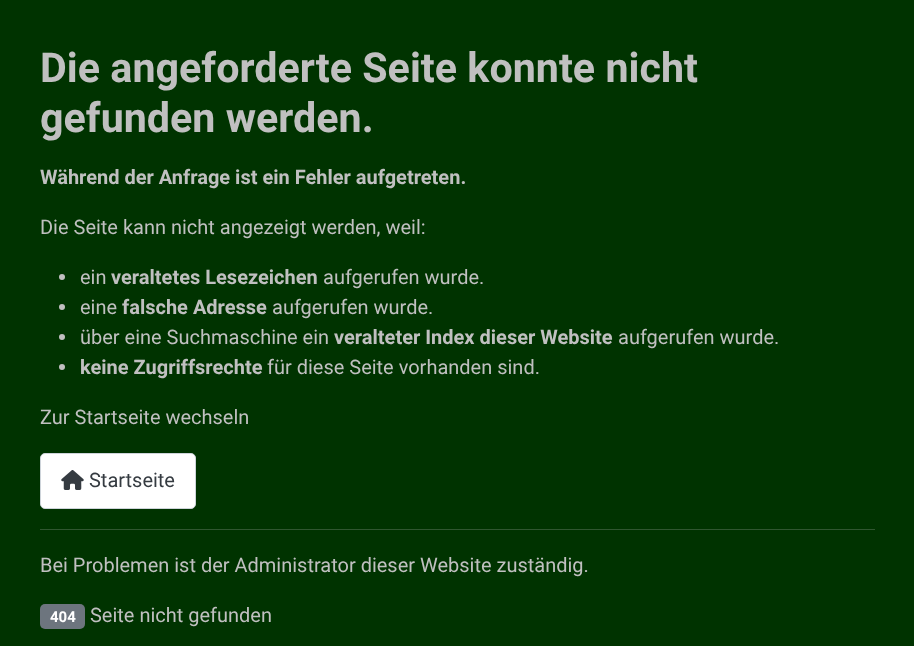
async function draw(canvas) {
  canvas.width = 914;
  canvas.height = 646;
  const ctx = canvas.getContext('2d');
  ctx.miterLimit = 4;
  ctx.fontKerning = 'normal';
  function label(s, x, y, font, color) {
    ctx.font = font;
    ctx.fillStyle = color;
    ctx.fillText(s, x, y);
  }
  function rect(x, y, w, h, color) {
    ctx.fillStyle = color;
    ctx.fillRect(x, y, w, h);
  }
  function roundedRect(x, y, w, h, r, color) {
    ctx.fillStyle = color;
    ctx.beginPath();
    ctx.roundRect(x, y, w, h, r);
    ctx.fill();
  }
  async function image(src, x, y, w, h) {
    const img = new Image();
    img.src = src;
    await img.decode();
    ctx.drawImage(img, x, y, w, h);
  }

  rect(0, 0, 914, 646, '#030');
  label('Die angeforderte Seite konnte nicht', 40, 82, 'bold 41.25px Roboto', '#c0c0c0');
  label('gefunden werden.', 40, 132, 'bold 41.25px Roboto', '#c0c0c0');
  label('Während der Anfrage ist ein Fehler aufgetreten.', 40, 184, 'bold 20px Roboto', '#c0c0c0');
  label('Die Seite kann nicht angezeigt werden, weil:', 40, 234, '20px Roboto', '#c0c0c0');
  ctx.beginPath();
  ctx.arc(62, 277, 3, 0, 2 * Math.PI);
  ctx.fill();
  label('ein', 80, 284, '20px Roboto', '#c0c0c0');
  label('veraltetes Lesezeichen', 111, 284, 'bold 20px Roboto', '#c0c0c0');
  label('aufgerufen wurde.', 323, 284, '20px Roboto', '#c0c0c0');
  ctx.beginPath();
  ctx.arc(62, 307, 3, 0, 2 * Math.PI);
  ctx.fill();
  label('eine', 80, 314, '20px Roboto', '#c0c0c0');
  label('falsche Adresse', 122, 314, 'bold 20px Roboto', '#c0c0c0');
  label('aufgerufen wurde.', 272, 314, '20px Roboto', '#c0c0c0');
  ctx.beginPath();
  ctx.arc(62, 337, 3, 0, 2 * Math.PI);
  ctx.fill();
  label('über eine Suchmaschine ein', 80, 344, '20px Roboto', '#c0c0c0');
  label('veralteter Index dieser Website', 334, 344, 'bold 20px Roboto', '#c0c0c0');
  label('aufgerufen wurde.', 618, 344, '20px Roboto', '#c0c0c0');
  ctx.beginPath();
  ctx.arc(62, 367, 3, 0, 2 * Math.PI);
  ctx.fill();
  label('keine Zugriffsrechte', 80, 374, 'bold 20px Roboto', '#c0c0c0');
  label('für diese Seite vorhanden sind.', 267, 374, '20px Roboto', '#c0c0c0');
  label('Zur Startseite wechseln', 40, 424, '20px Roboto', '#c0c0c0');
  ctx.fillStyle = '#fff';
  ctx.beginPath();
  ctx.roundRect(40.5, 453.5, 155, 55, 4.5);
  ctx.fill();
  ctx.strokeStyle = '#ced4da';
  ctx.stroke();
  await image('assets/img1.png', 61, 470, 23, 20);
  label('Startseite', 89, 487, '20px Roboto', '#353b41');
  rect(40, 529, 835, 1, '#305630');
  label('Bei Problemen ist der Administrator dieser Website zuständig.', 40, 572, '20px Roboto', '#c0c0c0');
  roundedRect(40, 604, 45, 25, 5, '#6d757e');
  label('404', 50, 622, 'bold 15px Roboto', '#fff');
  label('Seite nicht gefunden', 90, 622, '20px Roboto', '#c0c0c0');
}

draw(document.querySelector('canvas'));
